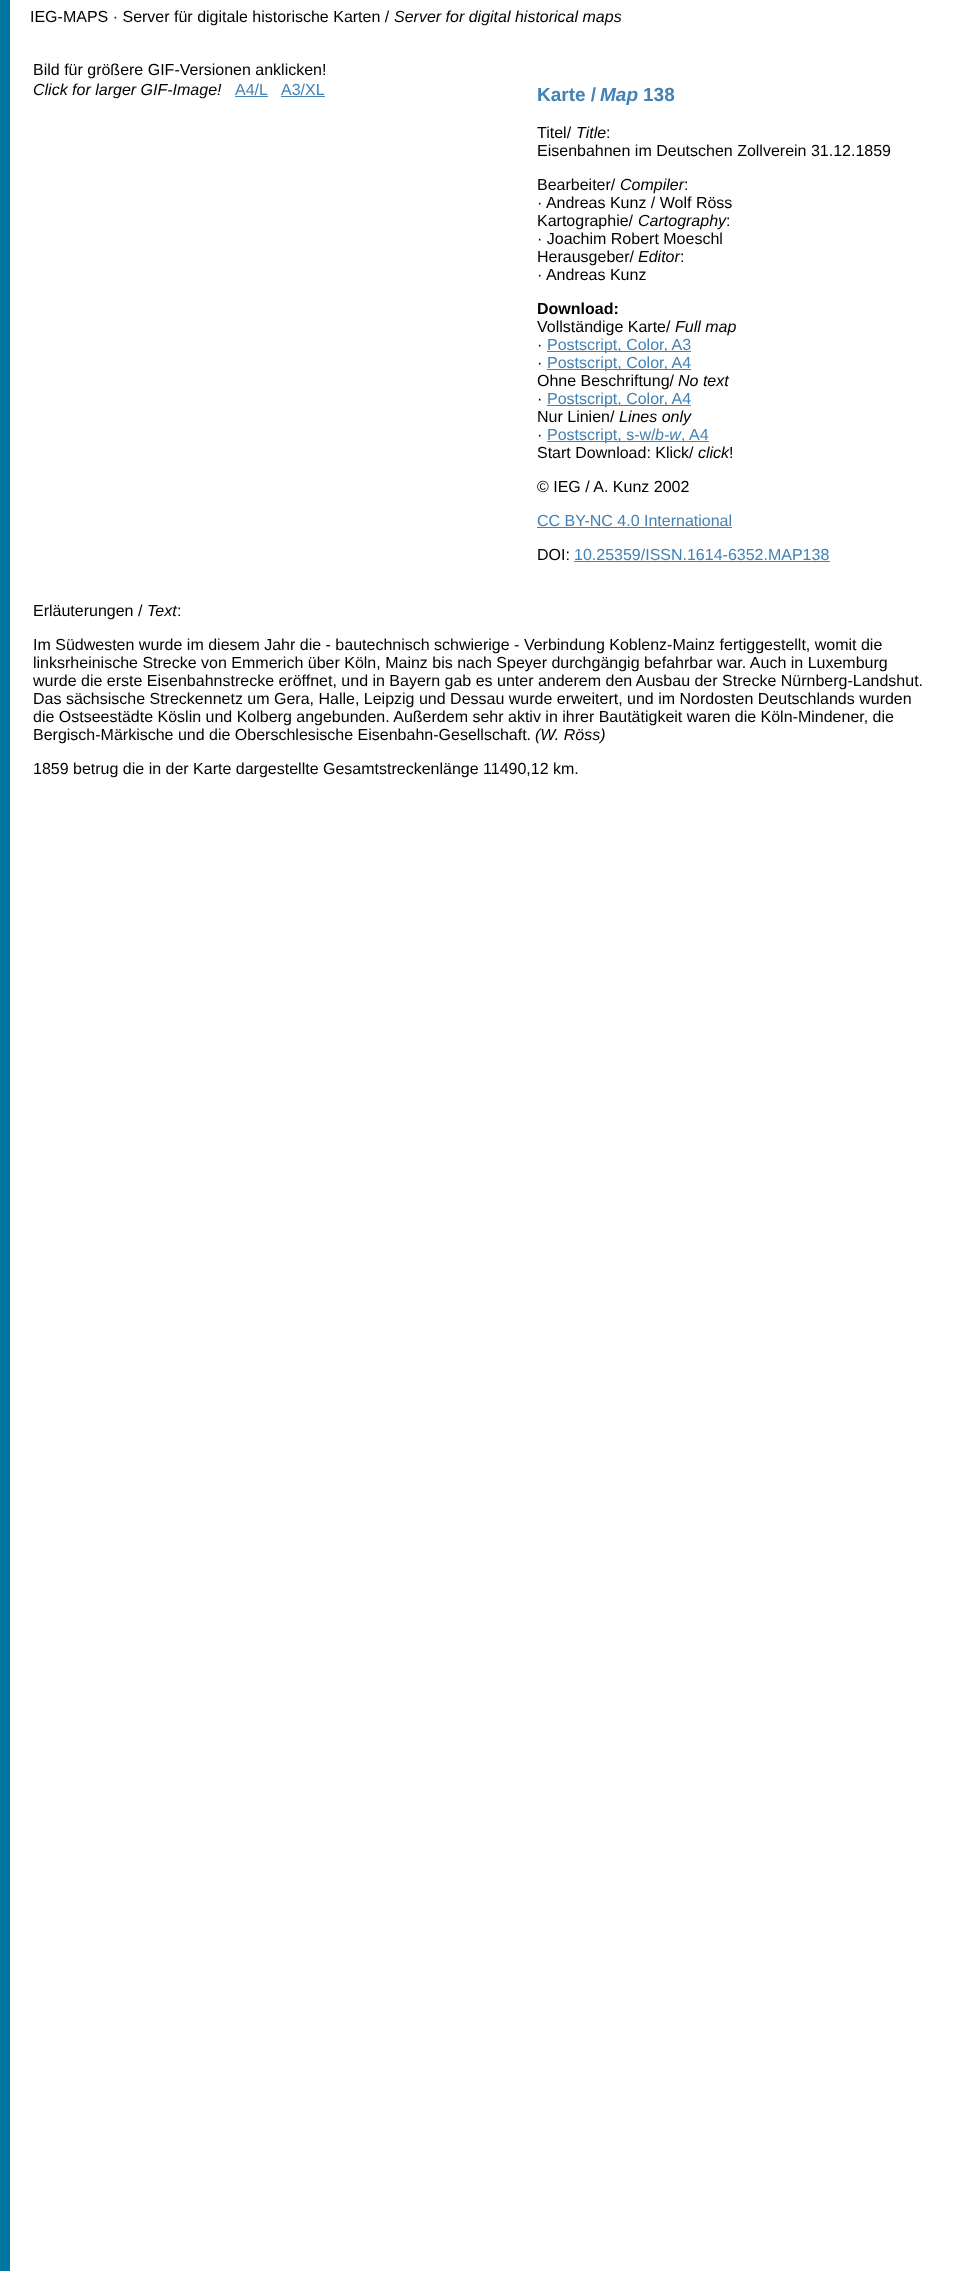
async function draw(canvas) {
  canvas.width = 953;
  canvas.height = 2271;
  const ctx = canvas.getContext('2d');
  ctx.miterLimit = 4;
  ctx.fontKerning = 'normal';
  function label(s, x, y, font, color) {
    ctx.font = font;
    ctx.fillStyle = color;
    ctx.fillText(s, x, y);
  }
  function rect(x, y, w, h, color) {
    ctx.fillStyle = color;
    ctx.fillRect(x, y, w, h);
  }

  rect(0, 0, 953, 2271, '#fff');
  rect(0, 0, 10, 2271, '#0077a2');
  label('IEG-MAPS · Server für digitale historische Karten /', 30, 22, '16px Liberation Sans', '#000');
  label('Server for digital historical maps', 394, 22, 'italic 16px Liberation Sans', '#000');
  label('Bild für größere GIF-Versionen anklicken!', 33, 75, '16px Liberation Sans', '#000');
  label('Click for larger GIF-Image!', 33, 95, 'italic 16px Liberation Sans', '#000');
  label('A4/L', 235, 95, '16px Liberation Sans', '#4382b4');
  rect(235, 96, 33, 1, '#4382b4');
  label('A3/XL', 281, 95, '16px Liberation Sans', '#4382b4');
  rect(281, 96, 44, 1, '#4382b4');
  label('Karte /', 537, 101, 'bold 19px Liberation Sans', '#4382b4');
  label('Map', 600, 101, 'italic bold 19px Liberation Sans', '#4382b4');
  label('138', 643, 101, 'bold 19px Liberation Sans', '#4382b4');
  label('Titel/', 537, 138, '16px Liberation Sans', '#000');
  label('Title', 576, 138, 'italic 16px Liberation Sans', '#000');
  label(':', 606, 138, '16px Liberation Sans', '#000');
  label('Eisenbahnen im Deutschen Zollverein 31.12.1859', 537, 156, '16px Liberation Sans', '#000');
  label('Bearbeiter/', 537, 190, '16px Liberation Sans', '#000');
  label('Compiler', 620, 190, 'italic 16px Liberation Sans', '#000');
  label(':', 684, 190, '16px Liberation Sans', '#000');
  label('· Andreas Kunz / Wolf Röss', 537, 208, '16px Liberation Sans', '#000');
  label('Kartographie/', 537, 226, '16px Liberation Sans', '#000');
  label('Cartography', 638, 226, 'italic 16px Liberation Sans', '#000');
  label(':', 726, 226, '16px Liberation Sans', '#000');
  label('· Joachim Robert Moeschl', 537, 244, '16px Liberation Sans', '#000');
  label('Herausgeber/', 537, 262, '16px Liberation Sans', '#000');
  label('Editor', 638, 262, 'italic 16px Liberation Sans', '#000');
  label(':', 680, 262, '16px Liberation Sans', '#000');
  label('· Andreas Kunz', 537, 280, '16px Liberation Sans', '#000');
  label('Download:', 537, 314, 'bold 16px Liberation Sans', '#000');
  label('Vollständige Karte/', 537, 332, '16px Liberation Sans', '#000');
  label('Full map', 675, 332, 'italic 16px Liberation Sans', '#000');
  label('·', 537, 350, '16px Liberation Sans', '#000');
  rect(547, 351, 144, 1, '#4382b4');
  label('Postscript, Color, A3', 547, 350, '16px Liberation Sans', '#4382b4');
  label('·', 537, 368, '16px Liberation Sans', '#000');
  rect(547, 369, 144, 1, '#4382b4');
  label('Postscript, Color, A4', 547, 368, '16px Liberation Sans', '#4382b4');
  label('Ohne Beschriftung/', 537, 386, '16px Liberation Sans', '#000');
  label('No text', 678, 386, 'italic 16px Liberation Sans', '#000');
  label('·', 537, 404, '16px Liberation Sans', '#000');
  rect(547, 405, 144, 1, '#4382b4');
  label('Postscript, Color, A4', 547, 404, '16px Liberation Sans', '#4382b4');
  label('Nur Linien/', 537, 422, '16px Liberation Sans', '#000');
  label('Lines only', 619, 422, 'italic 16px Liberation Sans', '#000');
  label('·', 537, 440, '16px Liberation Sans', '#000');
  rect(547, 441, 108, 1, '#4382b4');
  label('Postscript, s-w/', 547, 440, '16px Liberation Sans', '#4382b4');
  rect(655, 441, 54, 1, '#4382b4');
  label('b-w', 655, 440, 'italic 16px Liberation Sans', '#4382b4');
  label(', A4', 681, 440, '16px Liberation Sans', '#4382b4');
  label('Start Download: Klick/', 537, 458, '16px Liberation Sans', '#000');
  label('click', 698, 458, 'italic 16px Liberation Sans', '#000');
  label('!', 729, 458, '16px Liberation Sans', '#000');
  label('© IEG / A. Kunz 2002', 537, 492, '16px Liberation Sans', '#000');
  label('CC BY-NC 4.0 International', 537, 526, '16px Liberation Sans', '#4382b4');
  rect(537, 527, 195, 1, '#4382b4');
  label('DOI:', 537, 560, '16px Liberation Sans', '#000');
  label('10.25359/ISSN.1614-6352.MAP138', 574, 560, '16px Liberation Sans', '#4382b4');
  rect(574, 561, 256, 1, '#4382b4');
  label('Erläuterungen /', 33, 616, '16px Liberation Sans', '#000');
  label('Text', 147, 616, 'italic 16px Liberation Sans', '#000');
  label(':', 177, 616, '16px Liberation Sans', '#000');
  label('Im Südwesten wurde im diesem Jahr die - bautechnisch schwierige - Verbindung Koblenz-Mainz fertiggestellt, womit die', 33, 650, '16px Liberation Sans', '#000');
  label('linksrheinische Strecke von Emmerich über Köln, Mainz bis nach Speyer durchgängig befahrbar war. Auch in Luxemburg', 33, 668, '16px Liberation Sans', '#000');
  label('wurde die erste Eisenbahnstrecke eröffnet, und in Bayern gab es unter anderem den Ausbau der Strecke Nürnberg-Landshut.', 33, 686, '16px Liberation Sans', '#000');
  label('Das sächsische Streckennetz um Gera, Halle, Leipzig und Dessau wurde erweitert, und im Nordosten Deutschlands wurden', 33, 704, '16px Liberation Sans', '#000');
  label('die Ostseestädte Köslin und Kolberg angebunden. Außerdem sehr aktiv in ihrer Bautätigkeit waren die Köln-Mindener, die', 33, 722, '16px Liberation Sans', '#000');
  label('Bergisch-Märkische und die Oberschlesische Eisenbahn-Gesellschaft.', 33, 740, '16px Liberation Sans', '#000');
  label('(W. Röss)', 535, 740, 'italic 16px Liberation Sans', '#000');
  label('1859 betrug die in der Karte dargestellte Gesamtstreckenlänge 11490,12 km.', 33, 774, '16px Liberation Sans', '#000');
}

draw(document.querySelector('canvas'));
